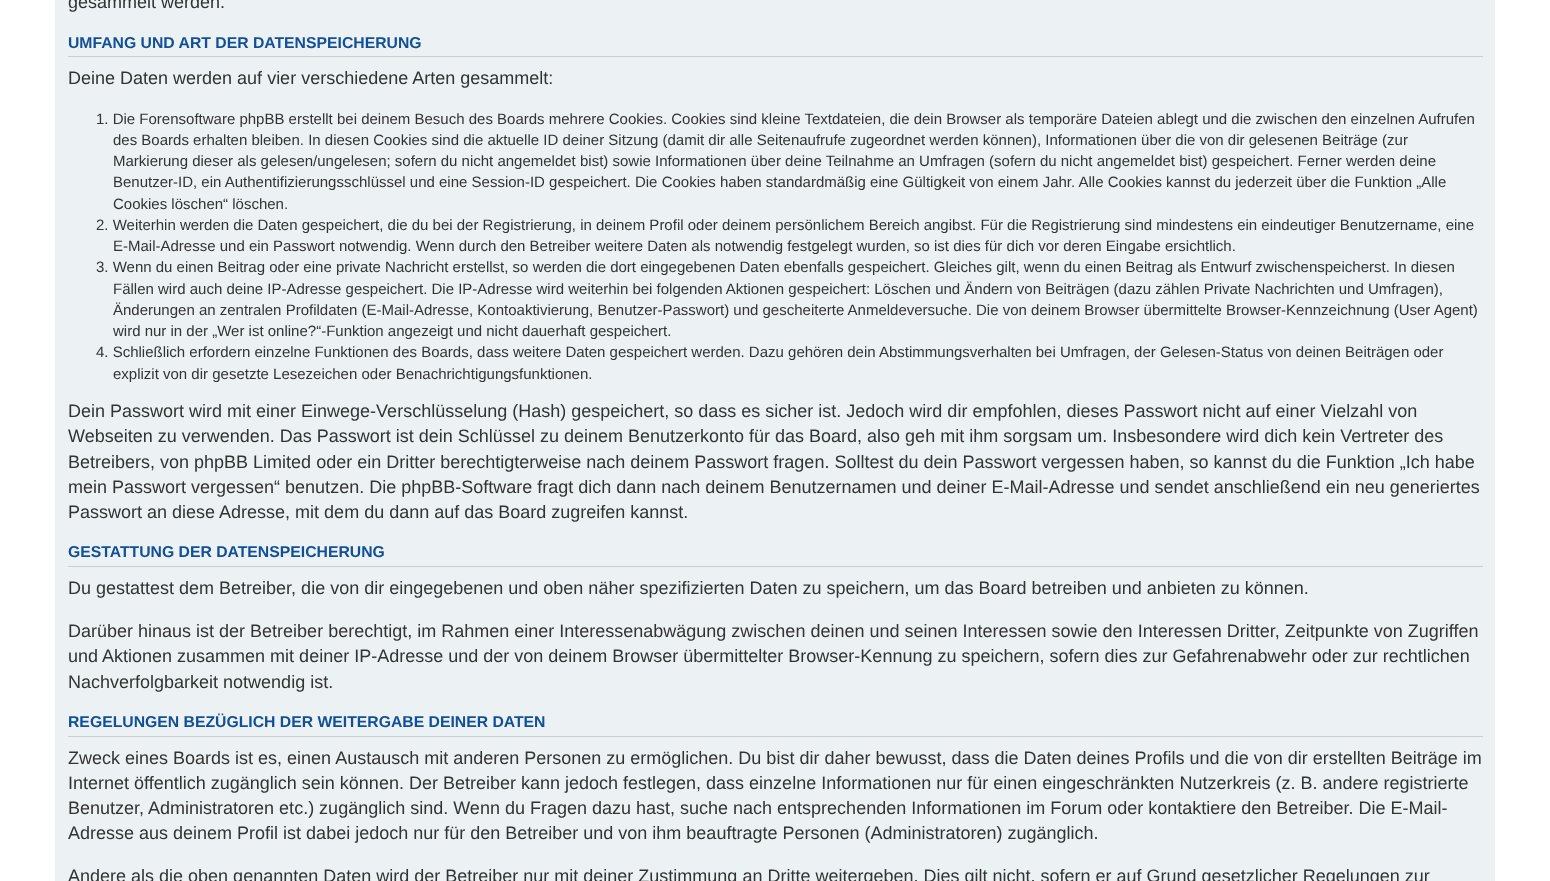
async function draw(canvas) {
  canvas.width = 1550;
  canvas.height = 881;
  const ctx = canvas.getContext('2d');
  ctx.miterLimit = 4;
  ctx.fontKerning = 'normal';
  function label(s, x, y, font, color) {
    ctx.font = font;
    ctx.fillStyle = color;
    ctx.fillText(s, x, y);
  }
  function rect(x, y, w, h, color) {
    ctx.fillStyle = color;
    ctx.fillRect(x, y, w, h);
  }

  rect(0, 0, 1550, 881, '#fff');
  rect(55, 0, 1440, 881, '#ecf1f3');
  label('gesammelt werden.', 68, 8, '18px Liberation Sans', '#333');
  rect(68, 56, 1415, 1, '#ccc');
  label('UMFANG UND ART DER DATENSPEICHERUNG', 68, 48, 'bold 15.75px Liberation Sans', '#115098');
  label('Deine Daten werden auf vier verschiedene Arten gesammelt:', 68, 84, '18px Liberation Sans', '#333');
  label('1. Die Forensoftware phpBB erstellt bei deinem Besuch des Boards mehrere Cookies. Cookies sind kleine Textdateien, die dein Browser als temporäre Dateien ablegt und die zwischen den einzelnen Aufrufen', 96, 124, '15px Liberation Sans', '#333');
  label('des Boards erhalten bleiben. In diesen Cookies sind die aktuelle ID deiner Sitzung (damit dir alle Seitenaufrufe zugeordnet werden können), Informationen über die von dir gelesenen Beiträge (zur', 113, 145, '15px Liberation Sans', '#333');
  label('Markierung dieser als gelesen/ungelesen; sofern du nicht angemeldet bist) sowie Informationen über deine Teilnahme an Umfragen (sofern du nicht angemeldet bist) gespeichert. Ferner werden deine', 113, 166, '15px Liberation Sans', '#333');
  label('Benutzer-ID, ein Authentifizierungsschlüssel und eine Session-ID gespeichert. Die Cookies haben standardmäßig eine Gültigkeit von einem Jahr. Alle Cookies kannst du jederzeit über die Funktion „Alle', 113, 187, '15px Liberation Sans', '#333');
  label('Cookies löschen“ löschen.', 113, 209, '15px Liberation Sans', '#333');
  label('2. Weiterhin werden die Daten gespeichert, die du bei der Registrierung, in deinem Profil oder deinem persönlichem Bereich angibst. Für die Registrierung sind mindestens ein eindeutiger Benutzername, eine', 96, 230, '15px Liberation Sans', '#333');
  label('E-Mail-Adresse und ein Passwort notwendig. Wenn durch den Betreiber weitere Daten als notwendig festgelegt wurden, so ist dies für dich vor deren Eingabe ersichtlich.', 113, 251, '15px Liberation Sans', '#333');
  label('3. Wenn du einen Beitrag oder eine private Nachricht erstellst, so werden die dort eingegebenen Daten ebenfalls gespeichert. Gleiches gilt, wenn du einen Beitrag als Entwurf zwischenspeicherst. In diesen', 96, 272, '15px Liberation Sans', '#333');
  label('Fällen wird auch deine IP-Adresse gespeichert. Die IP-Adresse wird weiterhin bei folgenden Aktionen gespeichert: Löschen und Ändern von Beiträgen (dazu zählen Private Nachrichten und Umfragen),', 113, 294, '15px Liberation Sans', '#333');
  label('Änderungen an zentralen Profildaten (E-Mail-Adresse, Kontoaktivierung, Benutzer-Passwort) und gescheiterte Anmeldeversuche. Die von deinem Browser übermittelte Browser-Kennzeichnung (User Agent)', 113, 315, '15px Liberation Sans', '#333');
  label('wird nur in der „Wer ist online?“-Funktion angezeigt und nicht dauerhaft gespeichert.', 113, 336, '15px Liberation Sans', '#333');
  label('4. Schließlich erfordern einzelne Funktionen des Boards, dass weitere Daten gespeichert werden. Dazu gehören dein Abstimmungsverhalten bei Umfragen, der Gelesen-Status von deinen Beiträgen oder', 96, 357, '15px Liberation Sans', '#333');
  label('explizit von dir gesetzte Lesezeichen oder Benachrichtigungsfunktionen.', 113, 379, '15px Liberation Sans', '#333');
  label('Dein Passwort wird mit einer Einwege-Verschlüsselung (Hash) gespeichert, so dass es sicher ist. Jedoch wird dir empfohlen, dieses Passwort nicht auf einer Vielzahl von', 68, 417, '18px Liberation Sans', '#333');
  label('Webseiten zu verwenden. Das Passwort ist dein Schlüssel zu deinem Benutzerkonto für das Board, also geh mit ihm sorgsam um. Insbesondere wird dich kein Vertreter des', 68, 442, '18px Liberation Sans', '#333');
  label('Betreibers, von phpBB Limited oder ein Dritter berechtigterweise nach deinem Passwort fragen. Solltest du dein Passwort vergessen haben, so kannst du die Funktion „Ich habe', 68, 468, '18px Liberation Sans', '#333');
  label('mein Passwort vergessen“ benutzen. Die phpBB-Software fragt dich dann nach deinem Benutzernamen und deiner E-Mail-Adresse und sendet anschließend ein neu generiertes', 68, 493, '18px Liberation Sans', '#333');
  label('Passwort an diese Adresse, mit dem du dann auf das Board zugreifen kannst.', 68, 518, '18px Liberation Sans', '#333');
  rect(68, 566, 1415, 1, '#ccc');
  label('GESTATTUNG DER DATENSPEICHERUNG', 68, 557, 'bold 15.75px Liberation Sans', '#115098');
  label('Du gestattest dem Betreiber, die von dir eingegebenen und oben näher spezifizierten Daten zu speichern, um das Board betreiben und anbieten zu können.', 68, 594, '18px Liberation Sans', '#333');
  label('Darüber hinaus ist der Betreiber berechtigt, im Rahmen einer Interessenabwägung zwischen deinen und seinen Interessen sowie den Interessen Dritter, Zeitpunkte von Zugriffen', 68, 637, '18px Liberation Sans', '#333');
  label('und Aktionen zusammen mit deiner IP-Adresse und der von deinem Browser übermittelter Browser-Kennung zu speichern, sofern dies zur Gefahrenabwehr oder zur rechtlichen', 68, 662, '18px Liberation Sans', '#333');
  label('Nachverfolgbarkeit notwendig ist.', 68, 688, '18px Liberation Sans', '#333');
  rect(68, 736, 1415, 1, '#ccc');
  label('REGELUNGEN BEZÜGLICH DER WEITERGABE DEINER DATEN', 68, 727, 'bold 15.75px Liberation Sans', '#115098');
  label('Zweck eines Boards ist es, einen Austausch mit anderen Personen zu ermöglichen. Du bist dir daher bewusst, dass die Daten deines Profils und die von dir erstellten Beiträge im', 68, 764, '18px Liberation Sans', '#333');
  label('Internet öffentlich zugänglich sein können. Der Betreiber kann jedoch festlegen, dass einzelne Informationen nur für einen eingeschränkten Nutzerkreis (z. B. andere registrierte', 68, 789, '18px Liberation Sans', '#333');
  label('Benutzer, Administratoren etc.) zugänglich sind. Wenn du Fragen dazu hast, suche nach entsprechenden Informationen im Forum oder kontaktiere den Betreiber. Die E-Mail-', 68, 814, '18px Liberation Sans', '#333');
  label('Adresse aus deinem Profil ist dabei jedoch nur für den Betreiber und von ihm beauftragte Personen (Administratoren) zugänglich.', 68, 839, '18px Liberation Sans', '#333');
  label('Andere als die oben genannten Daten wird der Betreiber nur mit deiner Zustimmung an Dritte weitergeben. Dies gilt nicht, sofern er auf Grund gesetzlicher Regelungen zur', 68, 882, '18px Liberation Sans', '#333');
}

draw(document.querySelector('canvas'));
